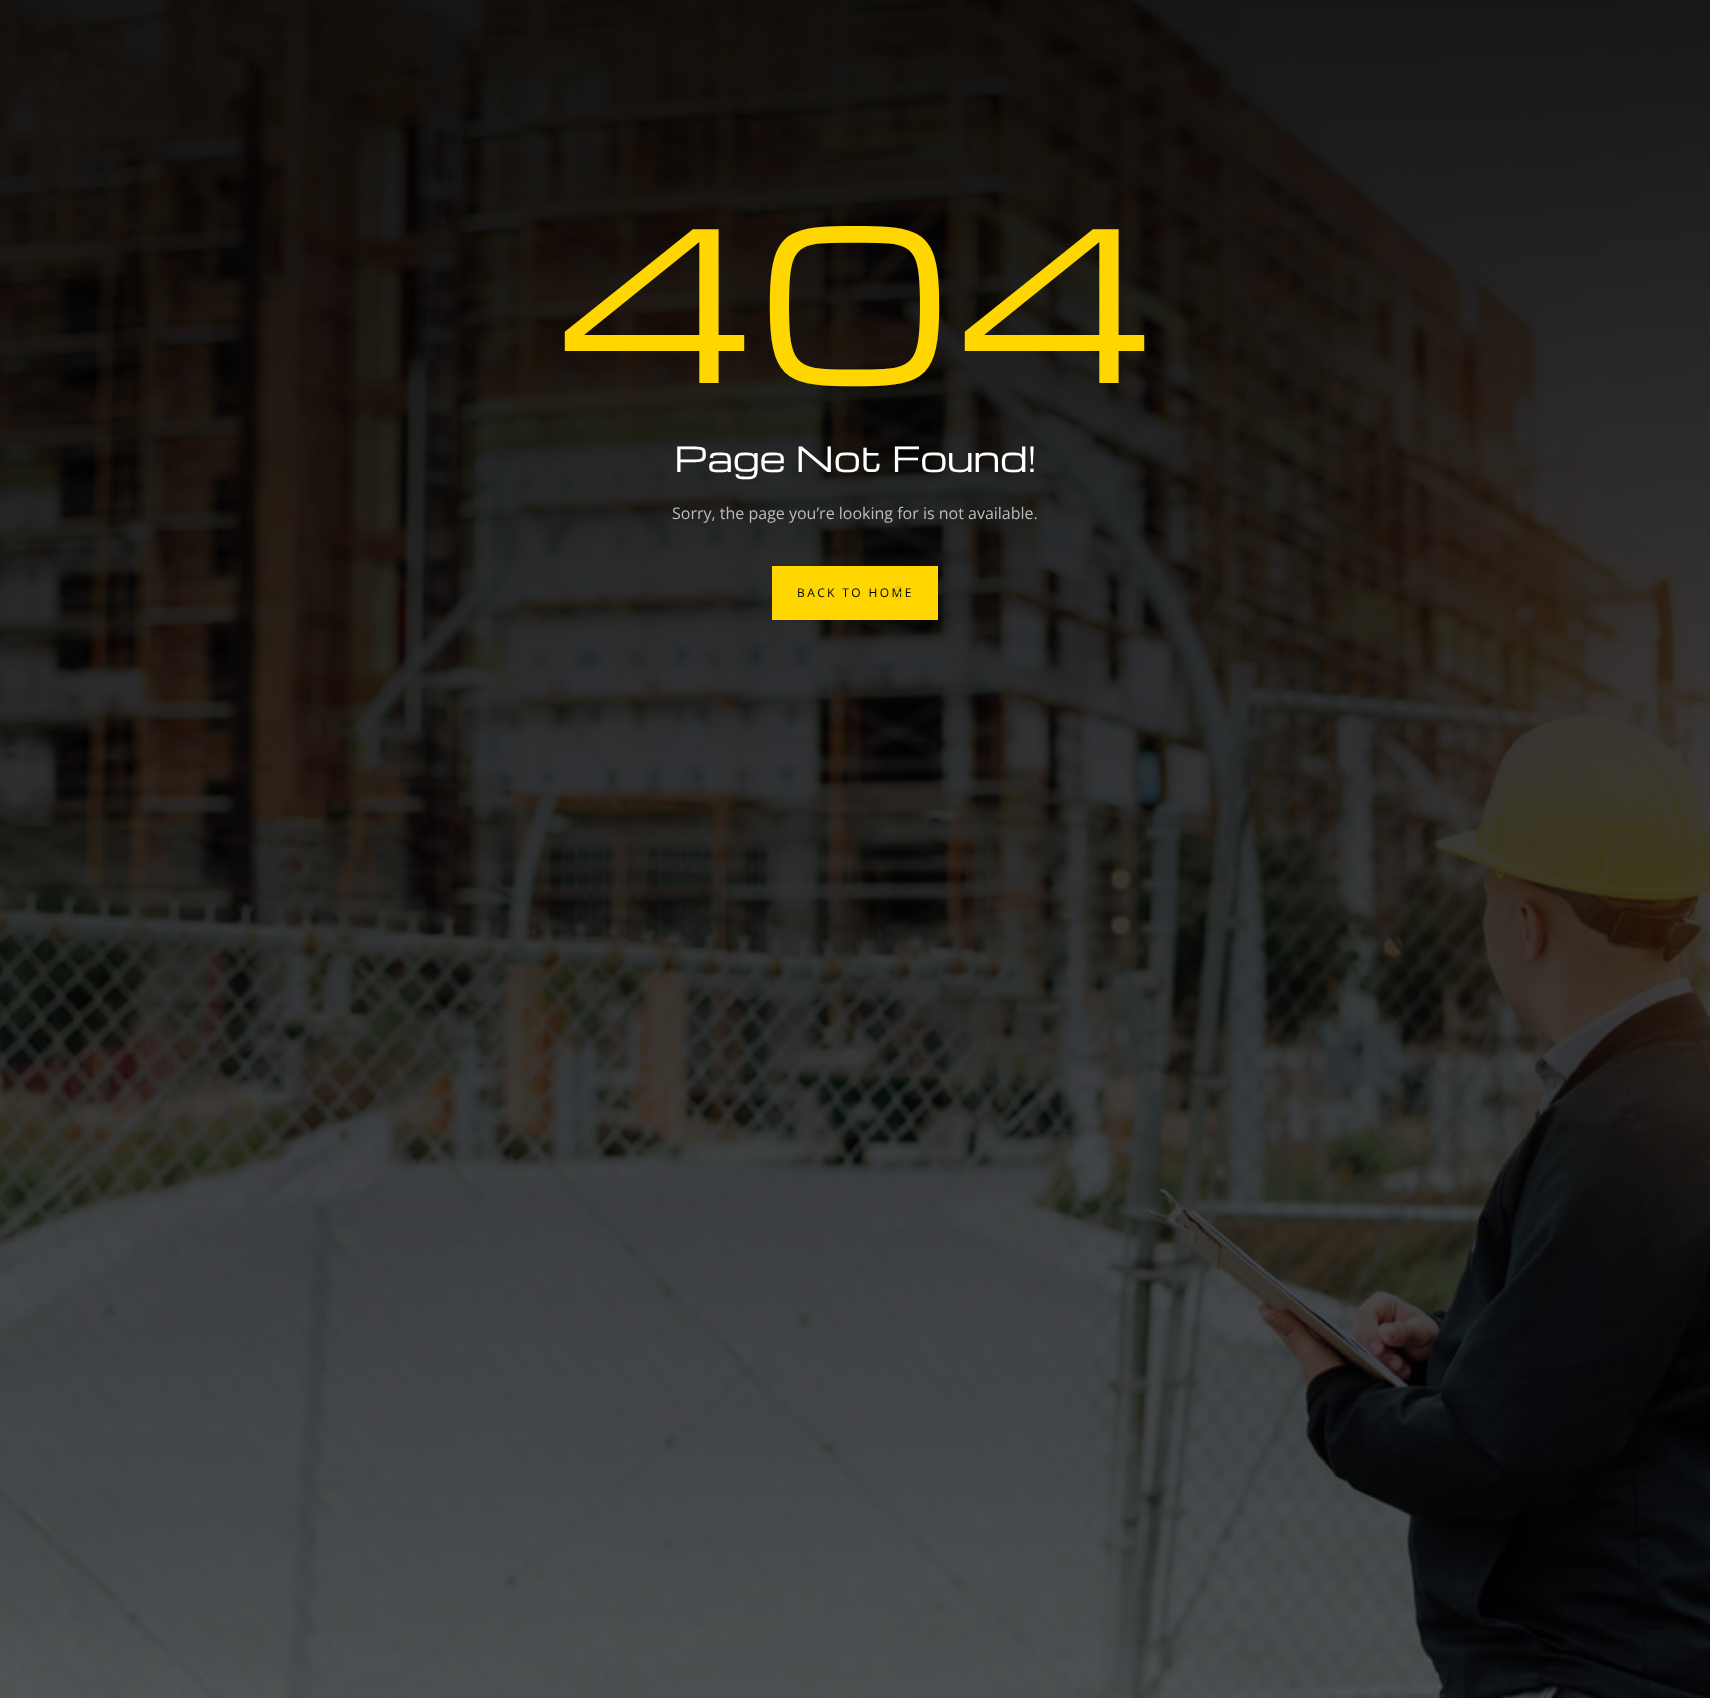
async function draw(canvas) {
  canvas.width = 1710;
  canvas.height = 1698;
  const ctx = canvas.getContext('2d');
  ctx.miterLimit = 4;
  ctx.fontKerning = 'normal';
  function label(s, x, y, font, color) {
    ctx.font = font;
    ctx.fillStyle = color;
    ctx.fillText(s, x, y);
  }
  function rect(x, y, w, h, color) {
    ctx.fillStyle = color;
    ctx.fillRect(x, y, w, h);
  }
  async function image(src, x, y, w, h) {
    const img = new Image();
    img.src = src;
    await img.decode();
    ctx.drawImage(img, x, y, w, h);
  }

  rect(0, 0, 1710, 1698, '#fff');
  await image('assets/img1.png', 0, 0, 1710, 1698);
  label('404', 552, 383, '205px Michroma', '#ffd600');
  label('Page Not Found!', 674, 472, '34px Michroma', '#fff');
  label('Sorry, the page you’re looking for is not available.', 672, 519, '16px Open Sans', '#bcbcbc');
  rect(772, 566, 166, 54, '#ffd600');
  ctx.letterSpacing = '2.4px';
  label('BACK TO HOME', 797, 597, '12px Open Sans', '#000');
  label('5', 894, 599, '19px Liberation Serif', '#e7c200');
}

draw(document.querySelector('canvas'));
